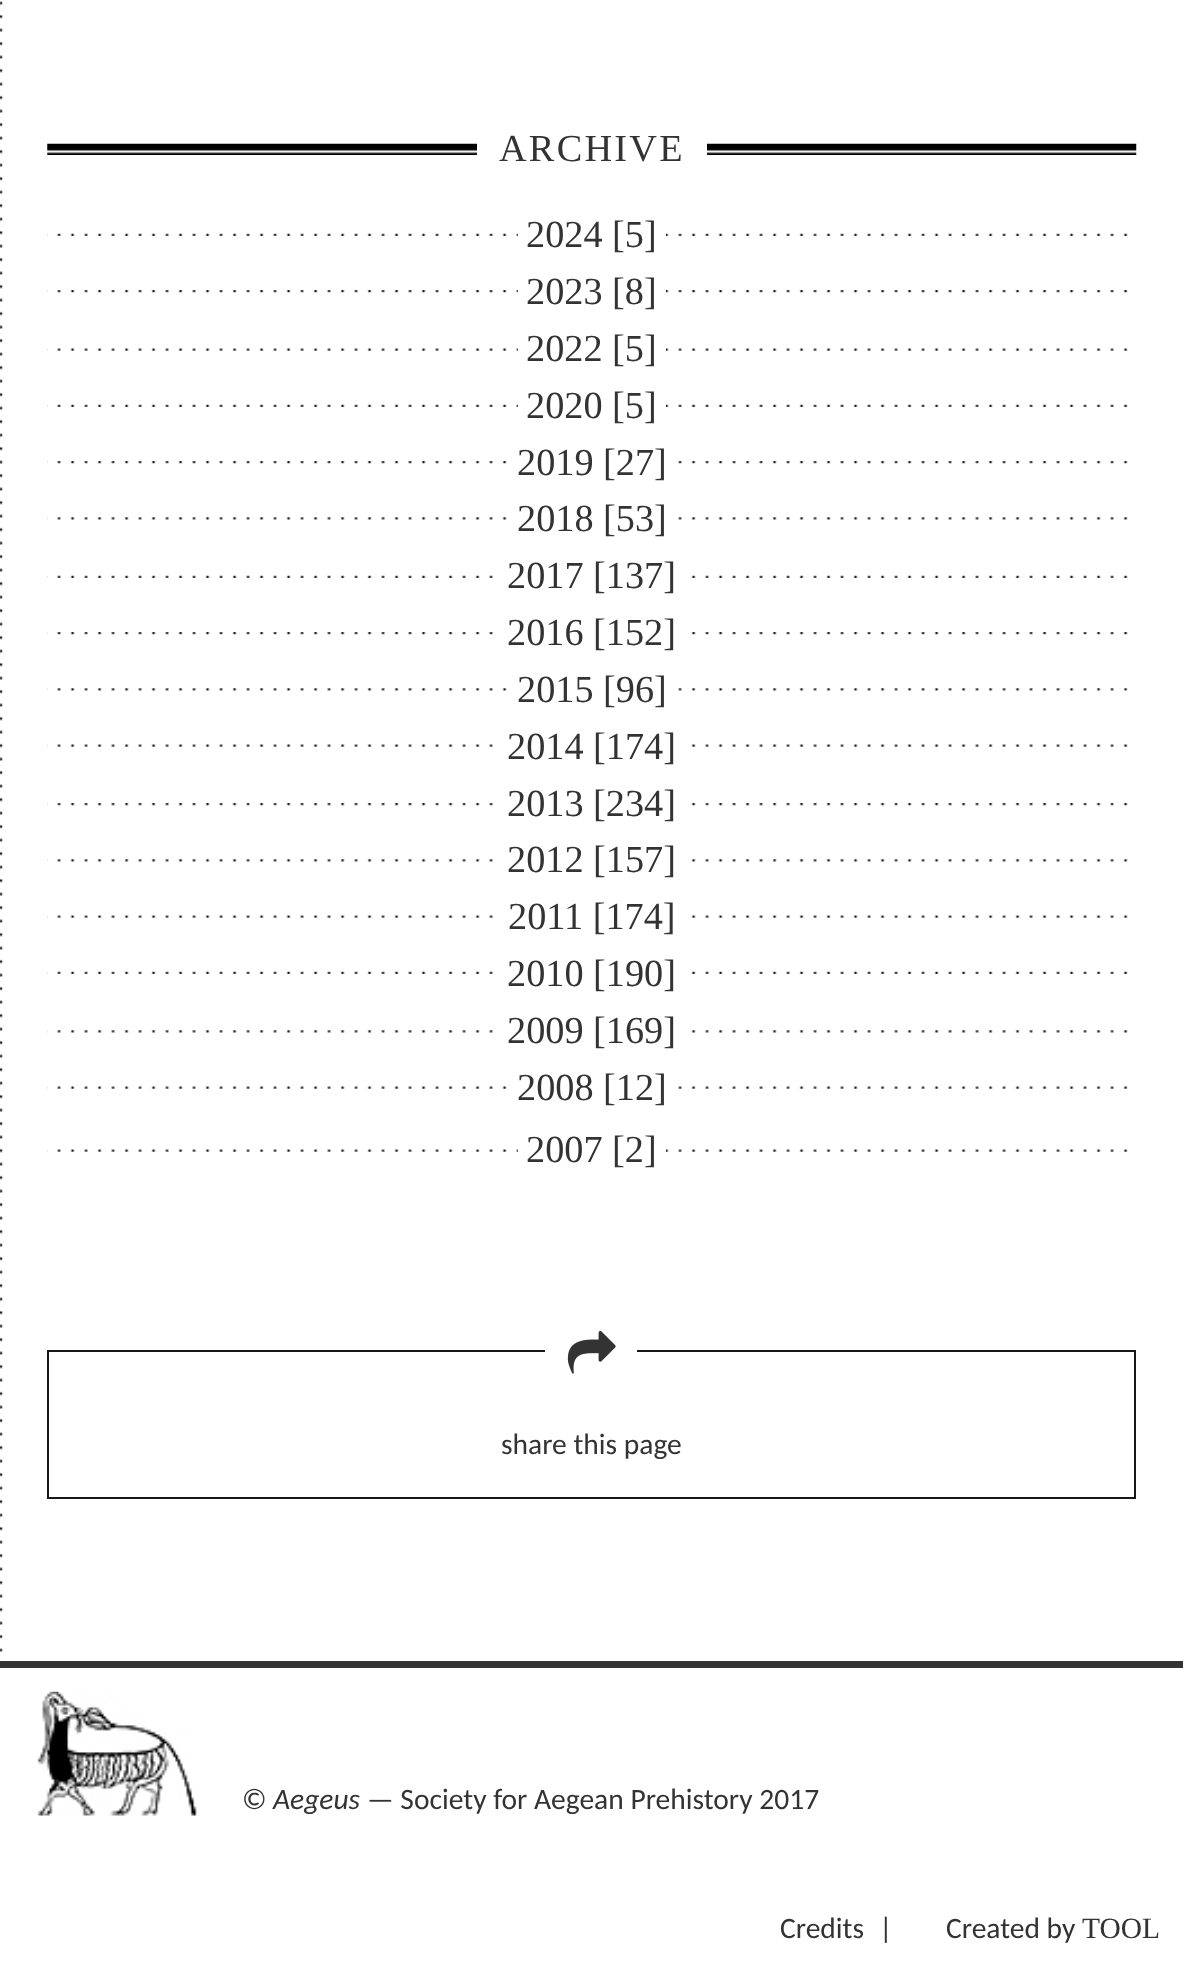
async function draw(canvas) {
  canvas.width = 1183;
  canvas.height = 1972;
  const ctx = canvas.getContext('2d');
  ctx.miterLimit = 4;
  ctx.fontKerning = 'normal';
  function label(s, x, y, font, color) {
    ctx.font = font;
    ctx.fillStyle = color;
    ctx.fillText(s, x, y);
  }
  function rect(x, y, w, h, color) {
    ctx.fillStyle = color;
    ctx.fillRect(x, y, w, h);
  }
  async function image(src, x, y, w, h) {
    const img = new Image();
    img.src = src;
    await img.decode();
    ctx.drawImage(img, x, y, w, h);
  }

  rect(0, 0, 1183, 1972, '#fff');
  await image('assets/img1.png', 0, 1, 3, 1651);
  await image('assets/img2.png', 47, 143, 1090, 12);
  rect(477, 143, 230, 12, '#fff');
  ctx.letterSpacing = '2.25px';
  label('ARCHIVE', 499, 161, '38.25px Liberation Serif', '#333');
  await image('assets/img3.png', 47, 233, 1081, 3);
  rect(518, 233, 148, 3, '#fff');
  ctx.letterSpacing = '0px';
  label('2024 [5]', 526, 247, '38.25px Liberation Serif', '#333');
  await image('assets/img4.png', 47, 290, 1081, 3);
  rect(518, 290, 148, 3, '#fff');
  label('2023 [8]', 526, 304, '38.25px Liberation Serif', '#333');
  await image('assets/img5.png', 47, 348, 1081, 3);
  rect(518, 348, 148, 3, '#fff');
  label('2022 [5]', 526, 361, '38.25px Liberation Serif', '#333');
  await image('assets/img3.png', 47, 404, 1081, 3);
  rect(518, 404, 148, 3, '#fff');
  label('2020 [5]', 526, 418, '38.25px Liberation Serif', '#333');
  await image('assets/img4.png', 47, 461, 1081, 3);
  rect(516, 461, 153, 3, '#fff');
  label('2019 [27]', 517, 475, '38.25px Liberation Serif', '#333');
  await image('assets/img6.png', 47, 517, 1081, 3);
  rect(516, 517, 153, 3, '#fff');
  label('2018 [53]', 517, 531, '38.25px Liberation Serif', '#333');
  await image('assets/img3.png', 47, 575, 1081, 3);
  rect(502, 575, 180, 3, '#fff');
  label('2017 [137]', 507, 588, '38.25px Liberation Serif', '#333');
  await image('assets/img4.png', 47, 632, 1081, 3);
  rect(502, 632, 180, 3, '#fff');
  label('2016 [152]', 507, 645, '38.25px Liberation Serif', '#333');
  await image('assets/img6.png', 47, 688, 1081, 3);
  rect(516, 688, 153, 3, '#fff');
  label('2015 [96]', 517, 702, '38.25px Liberation Serif', '#333');
  await image('assets/img5.png', 47, 744, 1081, 3);
  rect(502, 744, 180, 3, '#fff');
  label('2014 [174]', 507, 759, '38.25px Liberation Serif', '#333');
  await image('assets/img4.png', 47, 803, 1081, 3);
  rect(502, 803, 180, 3, '#fff');
  label('2013 [234]', 507, 816, '38.25px Liberation Serif', '#333');
  await image('assets/img6.png', 47, 859, 1081, 3);
  rect(502, 859, 180, 3, '#fff');
  label('2012 [157]', 507, 872, '38.25px Liberation Serif', '#333');
  await image('assets/img5.png', 47, 915, 1081, 3);
  rect(502, 915, 180, 3, '#fff');
  label('2011 [174]', 508, 929, '38.25px Liberation Serif', '#333');
  await image('assets/img3.png', 47, 971, 1081, 3);
  rect(502, 971, 180, 3, '#fff');
  label('2010 [190]', 507, 986, '38.25px Liberation Serif', '#333');
  await image('assets/img6.png', 47, 1030, 1081, 3);
  rect(502, 1030, 180, 3, '#fff');
  label('2009 [169]', 507, 1043, '38.25px Liberation Serif', '#333');
  await image('assets/img5.png', 47, 1086, 1081, 3);
  rect(516, 1086, 153, 3, '#fff');
  label('2008 [12]', 517, 1100, '38.25px Liberation Serif', '#333');
  await image('assets/img5.png', 47, 1149, 1081, 3);
  rect(518, 1149, 148, 3, '#fff');
  label('2007 [2]', 526, 1162, '38.25px Liberation Serif', '#333');
  ctx.strokeStyle = '#181818';
  ctx.lineWidth = 2;
  ctx.strokeRect(48, 1351, 1087, 147);
  rect(545, 1350, 92, 2, '#fff');
  await image('assets/img7.png', 567, 1331, 49, 43);
  label('share this page', 501, 1454, '29.5px Carlito', '#333');
  rect(0, 1661, 1183, 7, '#333');
  await image('assets/img8.png', 37, 1691, 160, 125);
  label('©', 242, 1809, '29.5px Carlito', '#333');
  label('Aegeus', 273, 1809, 'italic 29.5px Carlito', '#333');
  label('— Society for Aegean Prehistory 2017', 367, 1809, '29.5px Carlito', '#333');
  label('Credits', 780, 1938, '29.5px Carlito', '#333');
  label('|', 879, 1938, '29.5px Carlito', '#333');
  label('Created by', 946, 1938, '29.5px Carlito', '#333');
  label('TOOL', 1082, 1938, '29.5px Liberation Serif', '#333');
}

draw(document.querySelector('canvas'));
